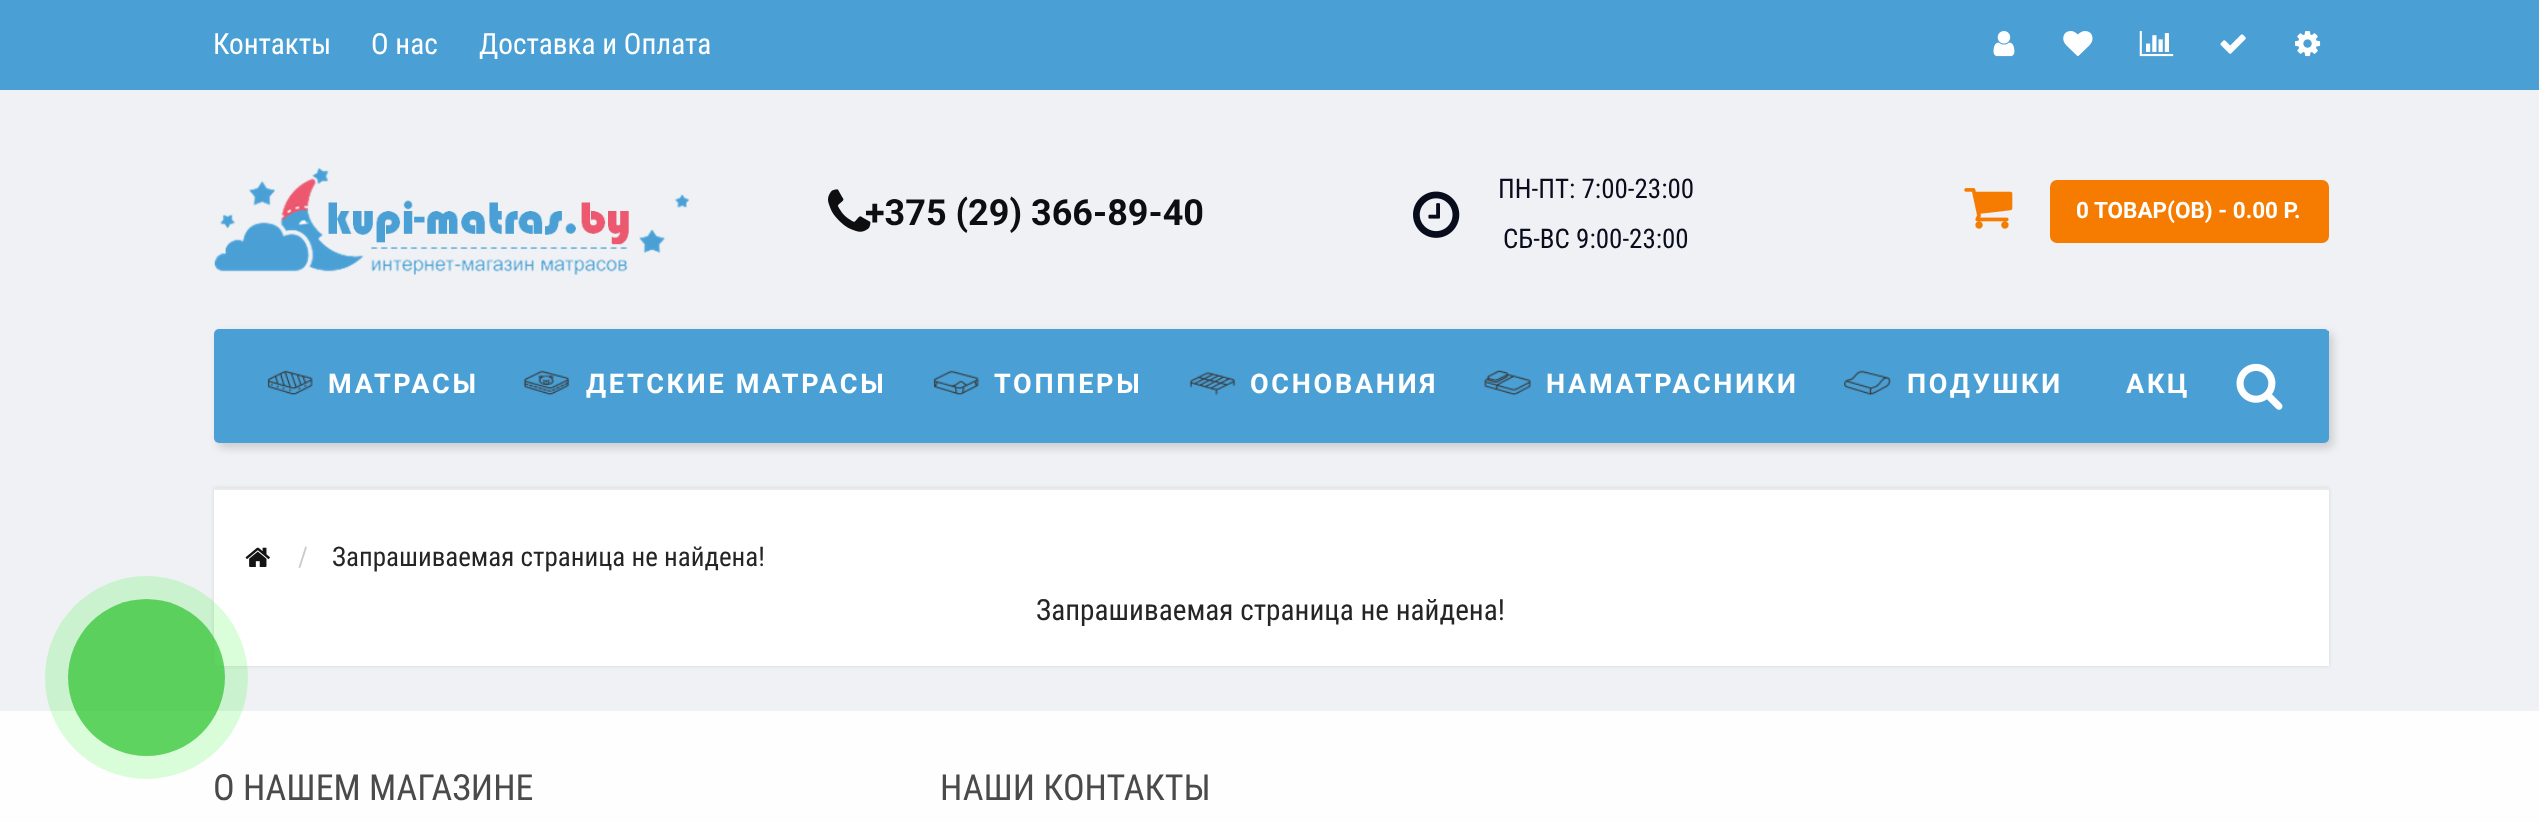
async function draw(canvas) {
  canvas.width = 2539;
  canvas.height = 822;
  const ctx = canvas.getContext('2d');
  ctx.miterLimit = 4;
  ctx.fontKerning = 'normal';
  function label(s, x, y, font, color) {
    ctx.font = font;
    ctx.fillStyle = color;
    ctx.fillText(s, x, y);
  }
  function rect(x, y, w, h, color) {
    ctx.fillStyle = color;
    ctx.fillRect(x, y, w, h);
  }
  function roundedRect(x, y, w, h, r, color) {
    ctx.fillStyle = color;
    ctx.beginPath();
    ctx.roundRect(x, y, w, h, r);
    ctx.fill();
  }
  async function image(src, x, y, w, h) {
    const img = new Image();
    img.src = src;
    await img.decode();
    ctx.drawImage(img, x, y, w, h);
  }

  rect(0, 0, 2539, 822, '#eff1f4');
  rect(0, 0, 2539, 90, '#4aa0d5');
  label('Контакты', 213, 54, '29.25px Roboto Condensed', '#fff');
  label('О нас', 371, 54, '29.25px Roboto Condensed', '#fff');
  label('Доставка и Оплата', 479, 54, '29.25px Roboto Condensed', '#fff');
  await image('assets/img1.png', 1993, 31, 22, 26);
  await image('assets/img2.png', 2063, 31, 30, 26);
  await image('assets/img3.png', 2139, 31, 35, 26);
  await image('assets/img4.png', 2220, 34, 26, 20);
  await image('assets/img5.png', 2295, 31, 26, 26);
  await image('assets/img6.png', 214, 167, 476, 108);
  await image('assets/img7.png', 828, 189, 43, 43);
  label('+375 (29) 366-89-40', 865, 225, 'bold 36px Roboto', '#0e0e11');
  await image('assets/img8.png', 1413, 191, 47, 47);
  label('ПН-ПТ: 7:00-23:00', 1498, 198, '27px Roboto Condensed', '#080c1d');
  label('СБ-ВС 9:00-23:00', 1503, 248, '27px Roboto Condensed', '#080c1d');
  await image('assets/img9.png', 1964, 188, 49, 41);
  roundedRect(2050, 180, 279, 63, 7, '#f57c00');
  label('0 ТОВАР(ОВ) - 0.00 Р.', 2076, 218, 'bold 22.5px Roboto', '#fff');
  ctx.fillStyle = '#00000026';
  ctx.filter = 'blur(4.5px)';
  ctx.beginPath();
  ctx.roundRect(218, 333, 2115, 115, 5);
  ctx.fill();
  ctx.filter = 'none';
  roundedRect(214, 329, 2115, 114, 5, '#4aa0d5');
  await image('assets/img10.png', 267, 370, 46, 26);
  ctx.letterSpacing = '2.75px';
  label('МАТРАСЫ', 328, 393, 'bold 27px Roboto', '#fff');
  await image('assets/img11.png', 523, 370, 47, 26);
  label('ДЕТСКИЕ МАТРАСЫ', 586, 393, 'bold 27px Roboto', '#fff');
  await image('assets/img12.png', 933, 370, 46, 26);
  label('ТОППЕРЫ', 994, 393, 'bold 27px Roboto', '#fff');
  await image('assets/img13.png', 1189, 371, 47, 25);
  label('ОСНОВАНИЯ', 1250, 393, 'bold 27px Roboto', '#fff');
  await image('assets/img14.png', 1484, 370, 47, 26);
  label('НАМАТРАСНИКИ', 1546, 393, 'bold 27px Roboto', '#fff');
  await image('assets/img15.png', 1844, 370, 47, 26);
  label('ПОДУШКИ', 1907, 393, 'bold 27px Roboto', '#fff');
  label('АКЦ', 2126, 393, 'bold 27px Roboto', '#fff');
  rect(2328, 331, 1, 3, '#4aa0d5');
  await image('assets/img16.png', 2236, 363, 47, 47);
  ctx.fillStyle = '#0000001a';
  ctx.filter = 'blur(2px)';
  ctx.beginPath();
  ctx.rect(214, 488, 2115, 178);
  ctx.fill();
  ctx.filter = 'none';
  rect(214, 490, 2115, 176, '#fff');
  rect(214, 488, 2115, 2, '#eaeaea');
  await image('assets/img17.png', 245, 547, 25, 20);
  ctx.letterSpacing = '0px';
  label('/', 298, 566, '27px Roboto Condensed', '#ccc');
  label('Запрашиваемая страница не найдена!', 332, 566, '27px Roboto Condensed', '#252525');
  label('Запрашиваемая страница не найдена!', 1036, 620, '29.25px Roboto Condensed', '#252525');
  rect(0, 711, 2539, 111, '#fefefe');
  label('О НАШЕМ МАГАЗИНЕ', 213, 800, '36px Roboto Condensed', '#4a4a4a');
  ctx.beginPath();
  ctx.arc(146.5, 677.5, 90, 0, 2 * Math.PI);
  ctx.strokeStyle = '#00f80026';
  ctx.lineWidth = 23;
  ctx.stroke();
  ctx.fillStyle = '#37c837cc';
  ctx.beginPath();
  ctx.arc(146.5, 677.5, 78.5, 0, 2 * Math.PI);
  ctx.fill();
  label('НАШИ КОНТАКТЫ', 940, 800, '36px Roboto Condensed', '#4a4a4a');
}

draw(document.querySelector('canvas'));
